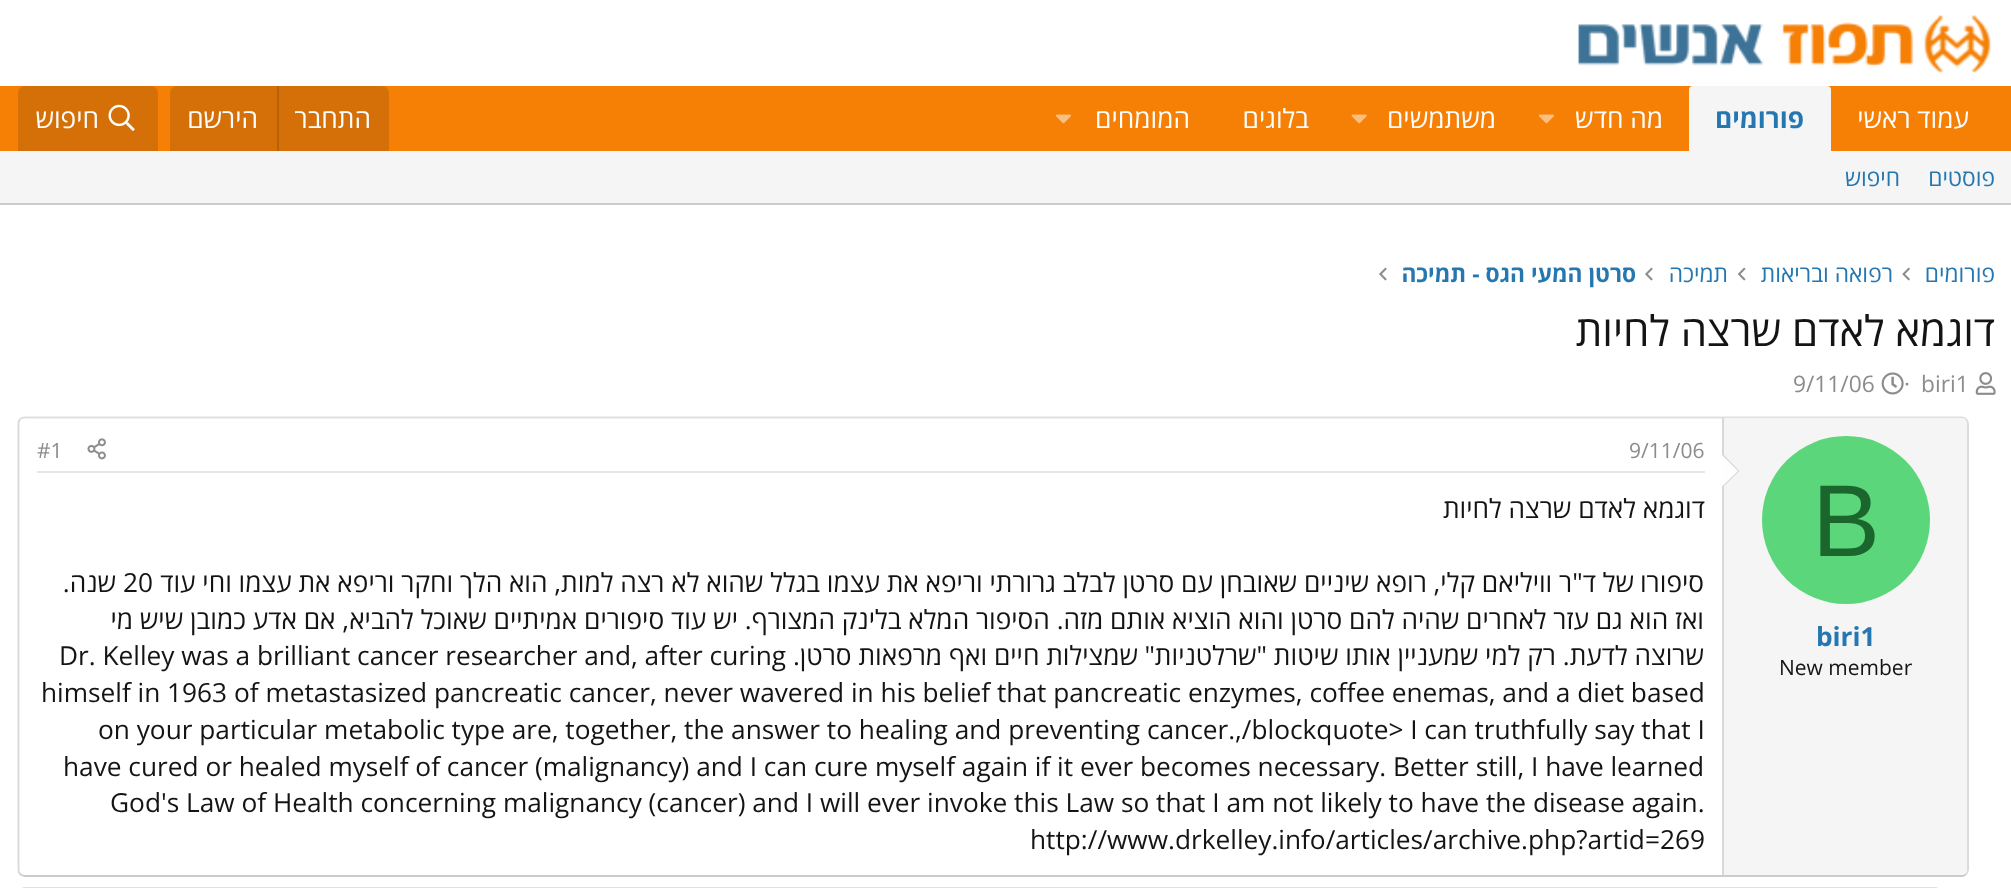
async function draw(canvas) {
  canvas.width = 2011;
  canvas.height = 888;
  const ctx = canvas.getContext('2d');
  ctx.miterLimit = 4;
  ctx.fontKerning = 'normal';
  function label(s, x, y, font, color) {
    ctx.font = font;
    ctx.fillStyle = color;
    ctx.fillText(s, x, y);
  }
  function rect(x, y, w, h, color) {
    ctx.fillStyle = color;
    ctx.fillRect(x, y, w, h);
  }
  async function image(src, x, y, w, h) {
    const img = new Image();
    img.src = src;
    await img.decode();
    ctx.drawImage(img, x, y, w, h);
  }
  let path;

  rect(0, 0, 2011, 888, '#fff');
  await image('assets/img1.png', 1578, 15, 413, 58);
  rect(0, 86, 2011, 65, '#f68005');
  ctx.fillStyle = '#d47007';
  ctx.beginPath();
  ctx.roundRect(18, 86, 140, 65, [7, 7, 0, 0]);
  ctx.fill();
  ctx.direction = 'rtl';
  label('חיפוש', 99, 128, '26.25px Open Sans', '#fefefe');
  await image('assets/img2.png', 108, 104, 27, 27);
  ctx.fillStyle = '#d47007';
  ctx.beginPath();
  ctx.roundRect(170, 86, 219, 65, [7, 7, 0, 0]);
  ctx.fill();
  rect(277, 86, 2, 65, '#b76209');
  label('הירשם', 258, 128, '26.25px Open Sans', '#fefefe');
  label('התחבר', 371, 128, '26.25px Open Sans', '#fefefe');
  await image('assets/img3.png', 1055, 114, 16, 10);
  label('המומחים', 1190, 128, '26.25px Open Sans', '#fefefe');
  label('בלוגים', 1309, 128, '26.25px Open Sans', '#fefefe');
  await image('assets/img4.png', 1351, 114, 16, 10);
  label('משתמשים', 1496, 128, '26.25px Open Sans', '#fefefe');
  await image('assets/img3.png', 1538, 114, 16, 10);
  label('מה חדש', 1663, 128, '26.25px Open Sans', '#fefefe');
  ctx.fillStyle = '#f5f5f5';
  ctx.beginPath();
  ctx.roundRect(1689, 86, 142, 65, [4, 4, 0, 0]);
  ctx.fill();
  label('פורומים', 1804, 128, 'bold 26.25px Open Sans', '#2577b1');
  label('עמוד ראשי', 1969, 128, '26.25px Open Sans', '#fefefe');
  rect(0, 151, 2011, 52, '#f5f5f5');
  rect(0, 203, 2011, 2, '#cbcbcb');
  label('חיפוש', 1900, 186, '22.75px Open Sans', '#2577b1');
  label('פוסטים', 1995, 186, '22.75px Open Sans', '#2577b1');
  await image('assets/img5.png', 1379, 267, 8, 14);
  label('סרטן המעי הגס - תמיכה', 1636, 282, 'bold 22.75px Open Sans', '#2577b1');
  await image('assets/img5.png', 1645, 267, 8, 14);
  label('תמיכה', 1728, 282, '22.75px Open Sans', '#2577b1');
  await image('assets/img6.png', 1737, 267, 9, 14);
  label('רפואה ובריאות', 1893, 282, '22.75px Open Sans', '#2577b1');
  await image('assets/img7.png', 1902, 267, 8, 14);
  label('פורומים', 1995, 282, '22.75px Open Sans', '#2577b1');
  label('דוגמא לאדם שרצה לחיות', 1995, 346, '42px Open Sans', '#141414');
  ctx.direction = 'ltr';
  label('9/11/06', 1793, 392, '22.75px Open Sans', '#8c8c8c');
  await image('assets/img8.png', 1881, 372, 23, 23);
  label('·', 1904, 392, '22.75px Open Sans', '#8c8c8c');
  label('biri1', 1921, 392, '22.75px Open Sans', '#8c8c8c');
  await image('assets/img9.png', 1975, 372, 21, 23);
  path = new Path2D('M20 419C21.5 418 23 417.5 24.5 417.5H1962C1963.5 417.5 1965 418 1966 419');
  ctx.strokeStyle = '#dfdfdf';
  ctx.lineWidth = 1.8;
  ctx.stroke(path);
  path = new Path2D('M1966 419C1967 420.5 1968 422 1968 423.5V870C1968 871.5 1967 873 1966 874');
  ctx.strokeStyle = '#d8d8d8';
  ctx.stroke(path);
  path = new Path2D('M1966 874C1965 875 1963.5 876 1962 876H24.5C23 876 21.5 875 20 874');
  ctx.strokeStyle = '#cbcbcb';
  ctx.stroke(path);
  path = new Path2D('M20 874C19 873 18.5 871.5 18.5 870V423.5C18.5 422 19 420.5 20 419');
  ctx.strokeStyle = '#d8d8d8';
  ctx.stroke(path);
  rect(37, 471, 1668, 2, '#e7e7e7');
  label('#1', 37, 458, '21px Open Sans', '#8c8c8c');
  await image('assets/img10.png', 87, 438, 19, 22);
  label('9/11/06', 1629, 458, '21px Open Sans', '#8c8c8c');
  ctx.direction = 'rtl';
  label('דוגמא לאדם שרצה לחיות', 1705, 518, '26.25px Open Sans', '#141414');
  label('שנה.', 116, 592, '26.25px Open Sans', '#141414');
  ctx.direction = 'ltr';
  label('20', 123, 592, '26.25px Open Sans', '#141414');
  ctx.direction = 'rtl';
  label('של ד"ר וויליאם קלי, רופא שיניים שאובחן עם סרטן לבלב גרורתי וריפא את עצמו בגלל שהוא לא רצה למות, הוא הלך וחקר וריפא את עצמו וחי עוד', 1634, 592, '26.25px Open Sans', '#141414');
  label('סיפורו', 1704, 592, '26.25px Open Sans', '#141414');
  label('ואז הוא גם עזר לאחרים שהיה להם סרטן והוא הוציא אותם מזה. הסיפור המלא בלינק המצורף. יש עוד סיפורים אמיתיים שאוכל להביא, אם אדע כמובן שיש מי', 1704, 629, '26.25px Open Sans', '#141414');
  ctx.direction = 'ltr';
  label('Dr. Kelley was a brilliant cancer researcher and, after curing', 59, 665, '26.25px Open Sans', '#141414');
  ctx.direction = 'rtl';
  label('שמצילות חיים ואף מרפאות סרטן.', 1138, 665, '26.25px Open Sans', '#141414');
  label('שרוצה לדעת. רק למי שמעניין אותו שיטות "שרלטניות"', 1704, 665, '26.25px Open Sans', '#141414');
  ctx.direction = 'ltr';
  label('himself in 1963 of metastasized pancreatic cancer, never wavered in his belief that pancreatic enzymes, coffee enemas, and a diet based', 41, 702, '26.25px Open Sans', '#141414');
  label('on your particular metabolic type are, together, the answer to healing and preventing cancer.,/blockquote> I can truthfully say that I', 98, 739, '26.25px Open Sans', '#141414');
  label('have cured or healed myself of cancer (malignancy) and I can cure myself again if it ever becomes necessary. Better still, I have learned', 63, 776, '26.25px Open Sans', '#141414');
  label('God\'s Law of Health concerning malignancy (cancer) and I will ever invoke this Law so that I am not likely to have the disease again.', 110, 812, '26.25px Open Sans', '#141414');
  label('http://www.drkelley.info/articles/archive.php?artid=269', 1030, 849, '26.25px Open Sans', '#141414');
  ctx.fillStyle = '#f5f5f5';
  ctx.beginPath();
  ctx.roundRect(1722, 418, 245, 457, [0, 5, 5, 0]);
  ctx.fill();
  rect(1722, 418, 2, 457, '#d8d8d8');
  path = new Path2D('M1722 488V453L1739.5 471Z');
  ctx.fill(path);
  ctx.fillStyle = '#fefefe';
  path = new Path2D('M1722 486.5V455L1738 471Z');
  ctx.fill(path);
  ctx.fillStyle = '#5cd67a';
  ctx.beginPath();
  ctx.arc(1846, 520, 84, 0, 2 * Math.PI);
  ctx.fill();
  label('B', 1812, 556, '102px Liberation Sans', '#1a662d');
  label('biri1', 1816, 646, 'bold 26.25px Open Sans', '#2577b1');
  label('New member', 1779, 675, '21px Open Sans', '#141414');
  path = new Path2D('M20 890C21.5 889 23 888 24.5 888H1935.5C1937 888 1938.5 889 1940 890');
  ctx.strokeStyle = '#dfdfdf';
  ctx.stroke(path);
}

draw(document.querySelector('canvas'));
